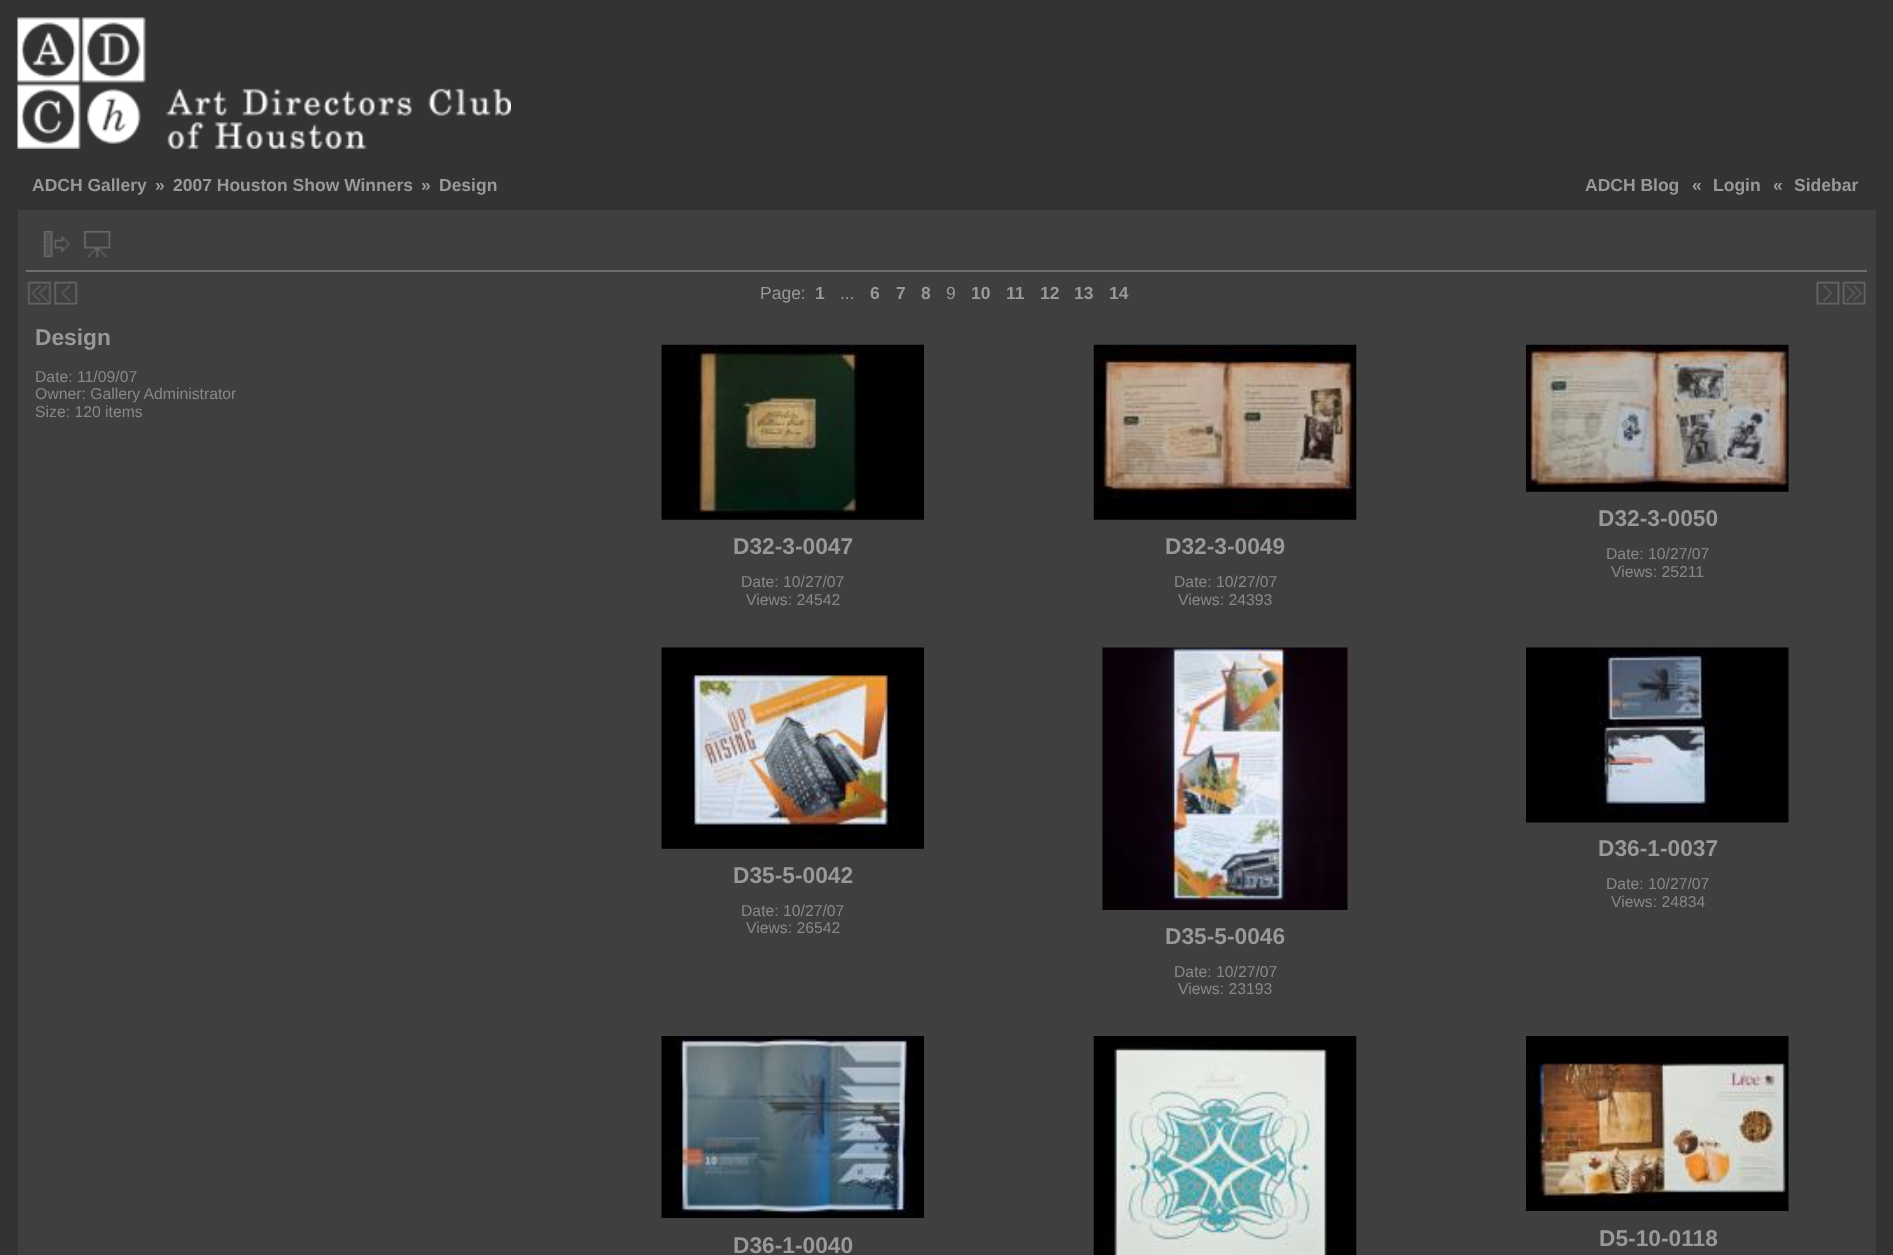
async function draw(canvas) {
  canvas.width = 1893;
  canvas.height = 1255;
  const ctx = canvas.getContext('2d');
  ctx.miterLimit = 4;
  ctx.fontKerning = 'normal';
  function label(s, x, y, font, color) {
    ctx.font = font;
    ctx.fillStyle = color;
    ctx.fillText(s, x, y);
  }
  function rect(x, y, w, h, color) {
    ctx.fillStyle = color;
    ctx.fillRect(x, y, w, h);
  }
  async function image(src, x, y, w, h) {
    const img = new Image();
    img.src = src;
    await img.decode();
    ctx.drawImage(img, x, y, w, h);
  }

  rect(0, 0, 1893, 1255, '#333');
  await image('assets/img1.png', 17, 17, 494, 132);
  label('ADCH Gallery', 32, 191, 'bold 17.5px Liberation Sans', '#999');
  label('»', 155, 191, 'bold 17.5px Liberation Sans', '#999');
  label('2007 Houston Show Winners', 173, 191, 'bold 17.5px Liberation Sans', '#999');
  label('»', 421, 191, 'bold 17.5px Liberation Sans', '#999');
  label('Design', 439, 191, 'bold 17.5px Liberation Sans', '#999');
  label('ADCH Blog', 1585, 191, 'bold 17.5px Liberation Sans', '#999');
  label('«', 1692, 191, 'bold 17.5px Liberation Sans', '#999');
  label('Login', 1713, 191, 'bold 17.5px Liberation Sans', '#999');
  label('«', 1773, 191, 'bold 17.5px Liberation Sans', '#999');
  label('Sidebar', 1794, 191, 'bold 17.5px Liberation Sans', '#999');
  rect(18, 210, 1858, 1045, '#3f3f3f');
  rect(26, 270, 1841, 2, '#6f6f6f');
  await image('assets/img2.png', 43, 231, 27, 27);
  await image('assets/img3.png', 84, 231, 27, 27);
  await image('assets/img4.png', 27, 281, 25, 24);
  await image('assets/img5.png', 54, 281, 24, 24);
  label('Page:', 760, 299, '17.5px Liberation Sans', '#999');
  label('1', 815, 299, 'bold 17.5px Liberation Sans', '#999');
  label('...', 840, 299, '17.5px Liberation Sans', '#999');
  label('6', 870, 299, 'bold 17.5px Liberation Sans', '#999');
  label('7', 896, 299, 'bold 17.5px Liberation Sans', '#999');
  label('8', 921, 299, 'bold 17.5px Liberation Sans', '#999');
  label('9', 946, 299, '17.5px Liberation Sans', '#999');
  label('10', 971, 299, 'bold 17.5px Liberation Sans', '#999');
  label('11', 1006, 299, 'bold 17.5px Liberation Sans', '#999');
  label('12', 1040, 299, 'bold 17.5px Liberation Sans', '#999');
  label('13', 1074, 299, 'bold 17.5px Liberation Sans', '#999');
  label('14', 1109, 299, 'bold 17.5px Liberation Sans', '#999');
  await image('assets/img6.png', 1816, 281, 24, 24);
  await image('assets/img7.png', 1842, 281, 24, 24);
  label('Design', 35, 345, 'bold 22.75px Liberation Sans', '#999');
  label('Date: 11/09/07', 35, 382, '15.75px Liberation Sans', '#888');
  label('Owner: Gallery Administrator', 35, 399, '15.75px Liberation Sans', '#888');
  label('Size: 120 items', 35, 417, '15.75px Liberation Sans', '#888');
  await image('assets/img8.png', 661, 344, 263, 176);
  label('D32-3-0047', 733, 554, 'bold 22.75px Liberation Sans', '#999');
  label('Date: 10/27/07', 741, 587, '15.75px Liberation Sans', '#888');
  label('Views: 24542', 746, 605, '15.75px Liberation Sans', '#888');
  await image('assets/img9.png', 1093, 344, 264, 176);
  label('D32-3-0049', 1165, 554, 'bold 22.75px Liberation Sans', '#999');
  label('Date: 10/27/07', 1174, 587, '15.75px Liberation Sans', '#888');
  label('Views: 24393', 1178, 605, '15.75px Liberation Sans', '#888');
  await image('assets/img10.png', 1526, 344, 263, 148);
  label('D32-3-0050', 1598, 526, 'bold 22.75px Liberation Sans', '#999');
  label('Date: 10/27/07', 1606, 559, '15.75px Liberation Sans', '#888');
  label('Views: 25211', 1611, 577, '15.75px Liberation Sans', '#888');
  await image('assets/img11.png', 661, 647, 263, 202);
  label('D35-5-0042', 733, 883, 'bold 22.75px Liberation Sans', '#999');
  label('Date: 10/27/07', 741, 916, '15.75px Liberation Sans', '#888');
  label('Views: 26542', 746, 933, '15.75px Liberation Sans', '#888');
  await image('assets/img12.png', 1526, 647, 263, 176);
  label('D36-1-0037', 1598, 856, 'bold 22.75px Liberation Sans', '#999');
  label('Date: 10/27/07', 1606, 889, '15.75px Liberation Sans', '#888');
  label('Views: 24834', 1611, 907, '15.75px Liberation Sans', '#888');
  await image('assets/img13.png', 1102, 647, 246, 263);
  label('D35-5-0046', 1165, 944, 'bold 22.75px Liberation Sans', '#999');
  label('Date: 10/27/07', 1174, 977, '15.75px Liberation Sans', '#888');
  label('Views: 23193', 1178, 994, '15.75px Liberation Sans', '#888');
  await image('assets/img14.png', 661, 1036, 263, 182);
  label('D36-1-0040', 733, 1253, 'bold 22.75px Liberation Sans', '#999');
  await image('assets/img15.png', 1093, 1036, 264, 219);
  await image('assets/img16.png', 1526, 1036, 263, 175);
  label('D5-10-0118', 1599, 1246, 'bold 22.75px Liberation Sans', '#999');
}

draw(document.querySelector('canvas'));
